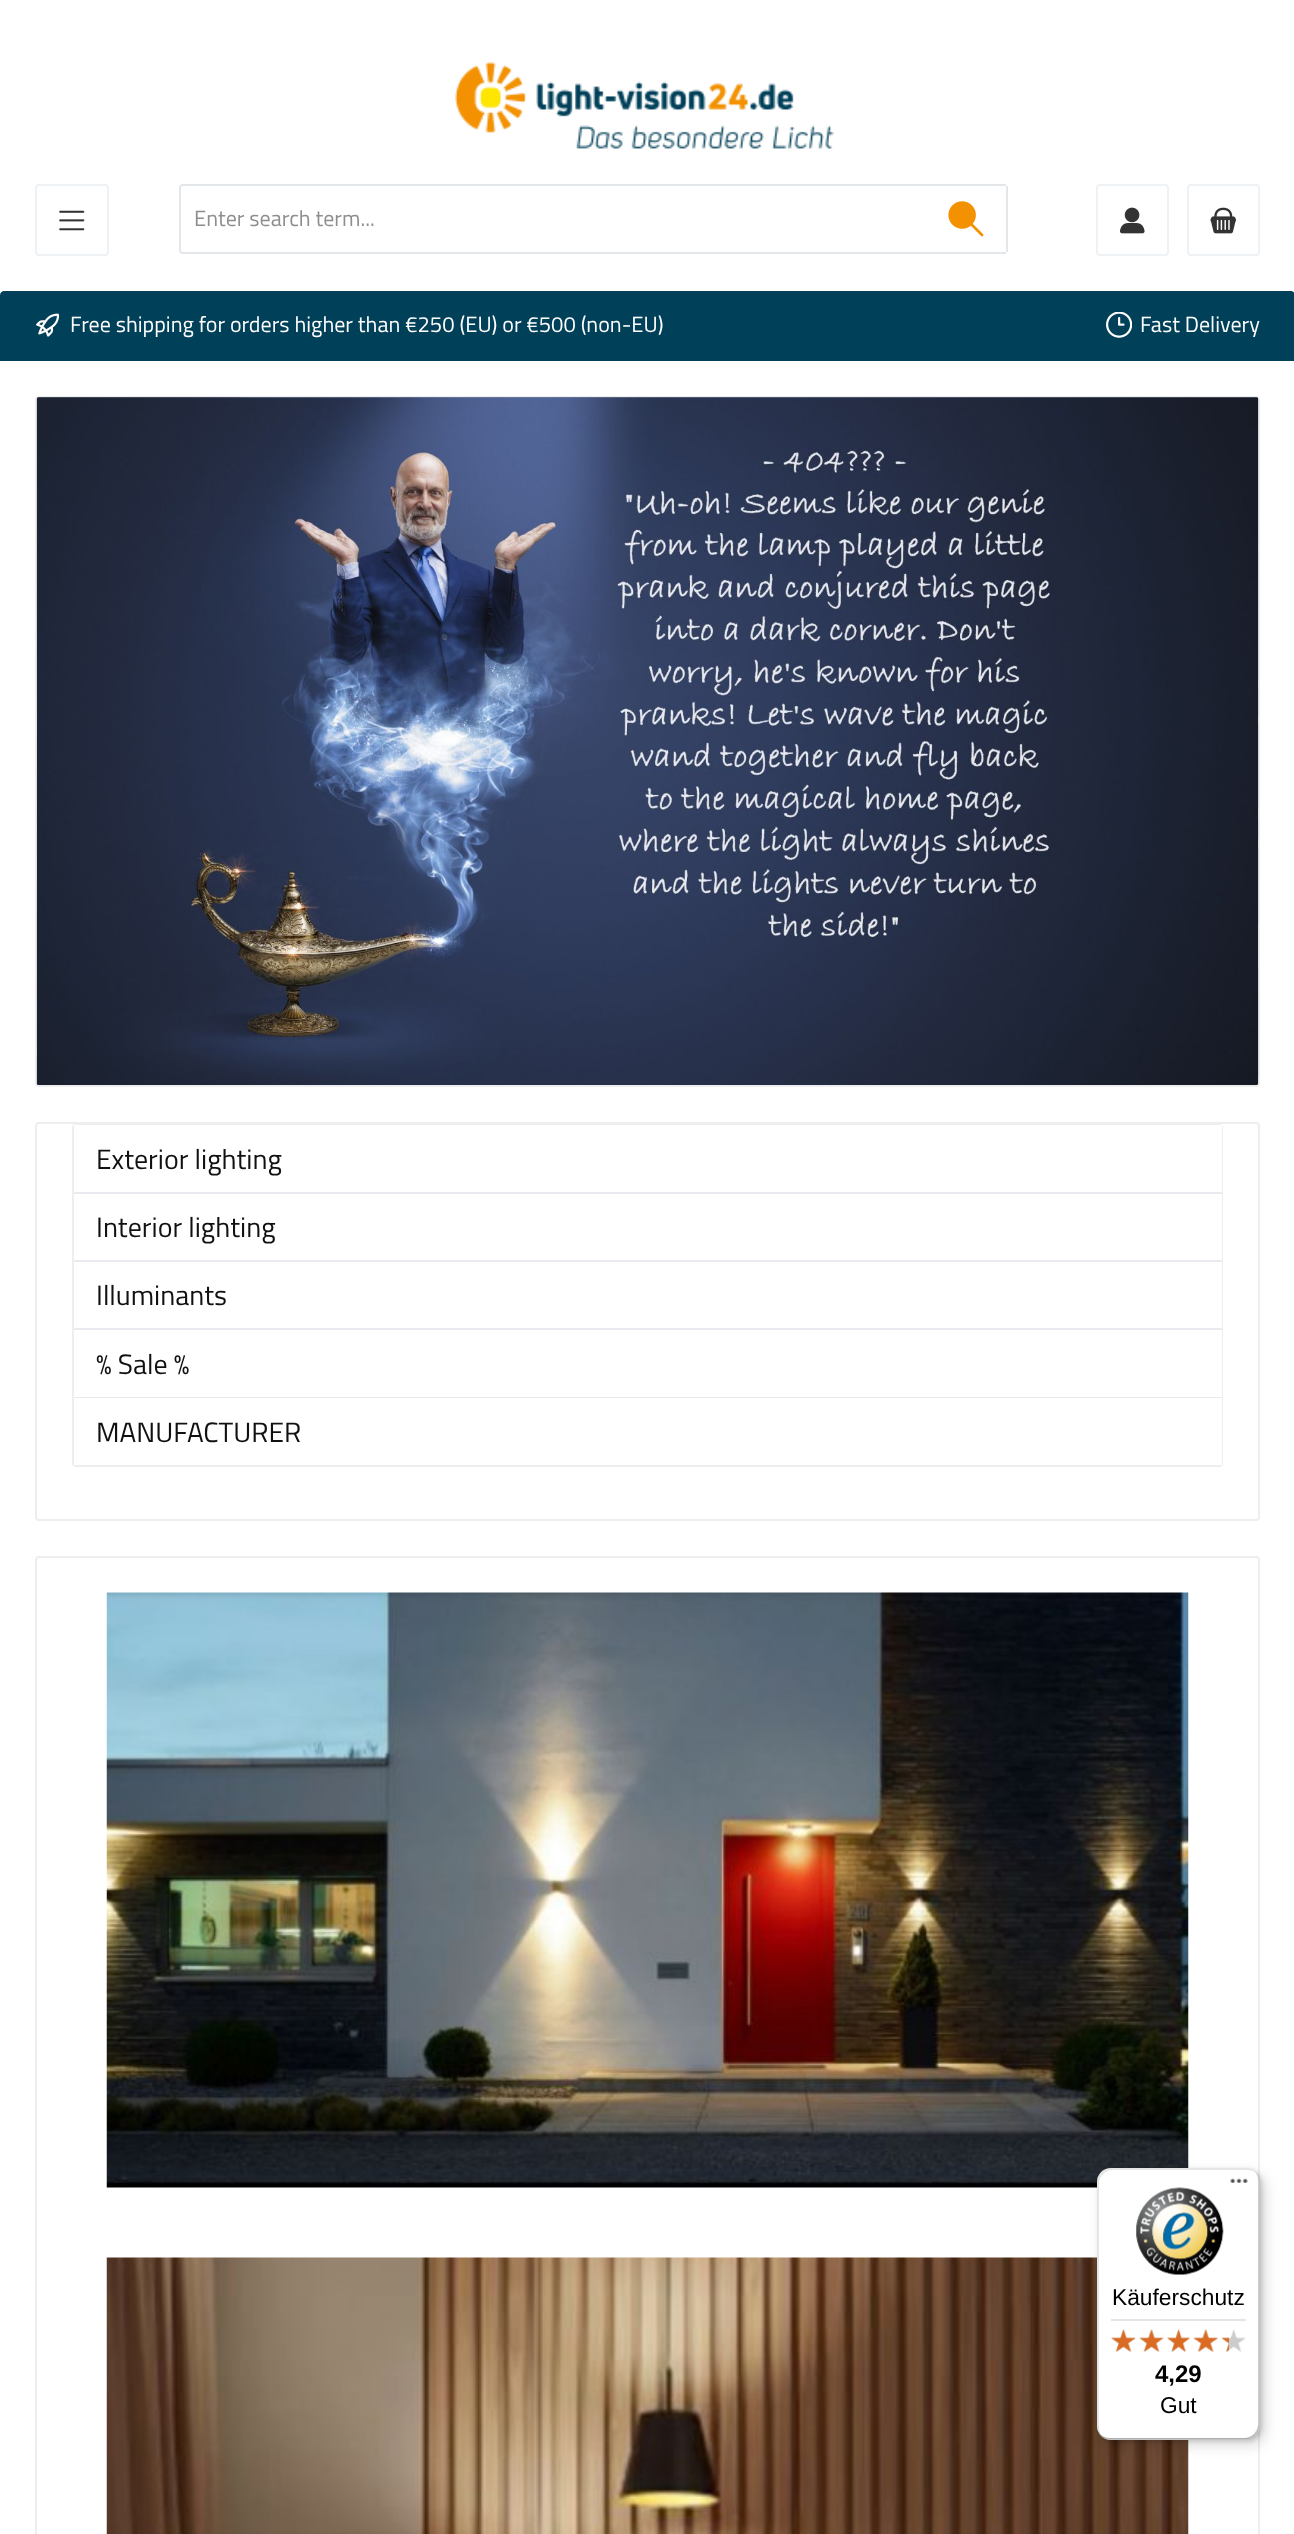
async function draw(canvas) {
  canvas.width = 1294;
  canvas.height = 2534;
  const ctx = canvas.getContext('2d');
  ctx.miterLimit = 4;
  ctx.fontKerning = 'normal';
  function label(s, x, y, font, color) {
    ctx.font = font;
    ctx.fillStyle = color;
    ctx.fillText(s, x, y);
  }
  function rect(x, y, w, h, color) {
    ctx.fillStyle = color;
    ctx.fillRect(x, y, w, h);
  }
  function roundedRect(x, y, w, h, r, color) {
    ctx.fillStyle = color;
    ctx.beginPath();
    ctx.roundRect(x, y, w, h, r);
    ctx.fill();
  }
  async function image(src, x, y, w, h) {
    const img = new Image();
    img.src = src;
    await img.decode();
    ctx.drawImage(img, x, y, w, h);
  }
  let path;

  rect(0, 0, 1294, 2534, '#fff');
  await image('assets/img1.png', 455, 62, 379, 87);
  ctx.beginPath();
  ctx.roundRect(36, 185, 72, 70, 3);
  ctx.strokeStyle = '#eef2f5';
  ctx.lineWidth = 2;
  ctx.stroke();
  await image('assets/img2.png', 59, 210, 26, 21);
  ctx.beginPath();
  ctx.roundRect(180, 185, 747, 68, [3, 0, 0, 3]);
  ctx.strokeStyle = '#e4e7ea';
  ctx.stroke();
  label('Enter search term...', 194, 226, '22.05px Titillium Web', '#8e8e8e');
  ctx.fillStyle = '#fff';
  ctx.beginPath();
  ctx.roundRect(926, 184, 82, 70, [0, 4, 4, 0]);
  ctx.fill();
  rect(926, 184, 80, 2, '#e4e7ea');
  rect(1006, 186, 2, 66, '#e4e7ea');
  rect(926, 252, 80, 2, '#e4e7ea');
  await image('assets/img3.png', 948, 201, 36, 36);
  ctx.beginPath();
  ctx.roundRect(1097, 185, 71, 70, 3);
  ctx.strokeStyle = '#eef2f5';
  ctx.stroke();
  await image('assets/img4.png', 1119, 207, 26, 27);
  ctx.beginPath();
  ctx.roundRect(1188, 185, 71, 70, 3);
  ctx.stroke();
  await image('assets/img5.png', 1210, 207, 26, 27);
  ctx.fillStyle = '#004059';
  path = new Path2D('M4 291H1291C1293 291 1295 293 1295 295V361H0V295C0 293 2 291 4 291Z');
  ctx.fill(path);
  await image('assets/img6.png', 36, 313, 24, 24);
  label('Free shipping for orders higher than €250 (EU) or €500 (non-EU)', 70, 332, '22.05px Titillium Web', '#fff');
  await image('assets/img7.png', 1106, 312, 26, 26);
  label('Fast Delivery', 1140, 332, '22.05px Titillium Web', '#fff');
  ctx.beginPath();
  ctx.roundRect(36, 397, 1223, 689, 3);
  ctx.strokeStyle = '#eee';
  ctx.stroke();
  await image('assets/img8.png', 36, 397, 1223, 688);
  await image('assets/img9.png', 36, 397, 1223, 688);
  ctx.beginPath();
  ctx.roundRect(36, 1123, 1223, 397, 3);
  ctx.stroke();
  ctx.beginPath();
  ctx.roundRect(73, 1125, 1149, 341, 3);
  ctx.stroke();
  rect(74, 1192, 1148, 2, '#eaeaf0');
  rect(74, 1125, 1148, 67, '#fff');
  label('Exterior lighting', 96, 1169, '28px Titillium Web', '#111');
  rect(74, 1260, 1148, 2, '#eaeaf0');
  rect(1221, 1194, 1, 66, '#fff');
  label('Interior lighting', 96, 1237, '28px Titillium Web', '#111');
  rect(74, 1328, 1148, 2, '#eaeaf0');
  rect(1221, 1262, 1, 66, '#fff');
  label('Illuminants', 96, 1305, '28px Titillium Web', '#111');
  rect(74, 1397, 1148, 1, '#eaeaf0');
  rect(1221, 1330, 1, 67, '#fff');
  label('% Sale %', 96, 1374, '28px Titillium Web', '#111');
  rect(74, 1398, 1148, 67, '#fff');
  label('MANUFACTURER', 96, 1442, '28px Titillium Web', '#111');
  ctx.beginPath();
  ctx.roundRect(36, 1557, 1223, 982, 3);
  ctx.stroke();
  await image('assets/img10.png', 106, 1592, 1083, 596);
  await image('assets/img11.png', 106, 2257, 1083, 277);
  ctx.fillStyle = '#00000026';
  ctx.filter = 'blur(7px)';
  ctx.beginPath();
  ctx.roundRect(1103, 2174, 162, 271, 14);
  ctx.fill();
  ctx.filter = 'none';
  ctx.filter = 'blur(2px)';
  ctx.beginPath();
  ctx.roundRect(1099, 2170, 163, 271, 14);
  ctx.fill();
  ctx.filter = 'none';
  roundedRect(1097, 2168, 163, 272, 14, '#fff');
  ctx.fillStyle = '#0000001a';
  path = new Path2D('M1113 2170H1248C1251 2170 1255 2171 1257 2174C1255 2170 1251 2168 1246 2168H1111C1103 2168 1097 2174 1097 2182V2426C1097 2432 1100 2436 1105 2439C1101 2436 1099 2432 1099 2427V2184C1099 2176 1105 2170 1113 2170Z');
  ctx.fill(path);
  ctx.fillStyle = '#00000033';
  path = new Path2D('M1098 2431C1100 2436 1105 2440 1111 2440H1246C1254 2440 1260 2434 1260 2426V2182C1260 2177 1258 2173 1254 2171C1257 2173 1258 2177 1258 2180V2424C1258 2431 1252 2438 1244 2438H1110C1105 2438 1100 2435 1098 2431Z');
  ctx.fill(path);
  ctx.fillStyle = '#32323233';
  path = new Path2D('M1098 2432C1101 2437 1105 2440 1111 2440H1246C1254 2440 1260 2434 1260 2426V2182C1260 2178 1259 2175 1256 2173C1258 2175 1259 2178 1259 2181V2424C1259 2432 1253 2438 1245 2438H1110C1105 2438 1101 2436 1098 2432Z');
  ctx.fill(path);
  ctx.fillStyle = '#ffffff4d';
  path = new Path2D('M1099 2433C1101 2437 1106 2440 1111 2440H1246C1254 2440 1260 2434 1260 2426V2182C1260 2177 1258 2173 1255 2171C1257 2174 1259 2177 1259 2181V2425C1259 2432 1253 2439 1245 2439H1110C1106 2439 1101 2436 1099 2433Z');
  ctx.fill(path);
  await image('assets/img12.png', 1230, 2178, 18, 5);
  await image('assets/img13.png', 1136, 2187, 88, 88);
  label('Käuferschutz', 1112, 2305, '22.75px Liberation Sans', '#000');
  rect(1111, 2319, 135, 2, '#e5e5e5');
  await image('assets/img14.png', 1111, 2329, 24, 23);
  await image('assets/img15.png', 1139, 2329, 25, 23);
  await image('assets/img16.png', 1167, 2329, 23, 23);
  await image('assets/img17.png', 1193, 2329, 25, 23);
  await image('assets/img18.png', 1222, 2329, 24, 23);
  await image('assets/img19.png', 1111, 2329, 25, 23);
  await image('assets/img20.png', 1139, 2329, 25, 23);
  await image('assets/img21.png', 1167, 2329, 23, 23);
  await image('assets/img22.png', 1193, 2329, 25, 23);
  await image('assets/img23.png', 1221, 2337, 8, 15);
  label('4,29', 1155, 2382, 'bold 24px Liberation Sans', '#000');
  label('Gut', 1160, 2413, '22.75px Liberation Sans', '#000');
}

draw(document.querySelector('canvas'));
